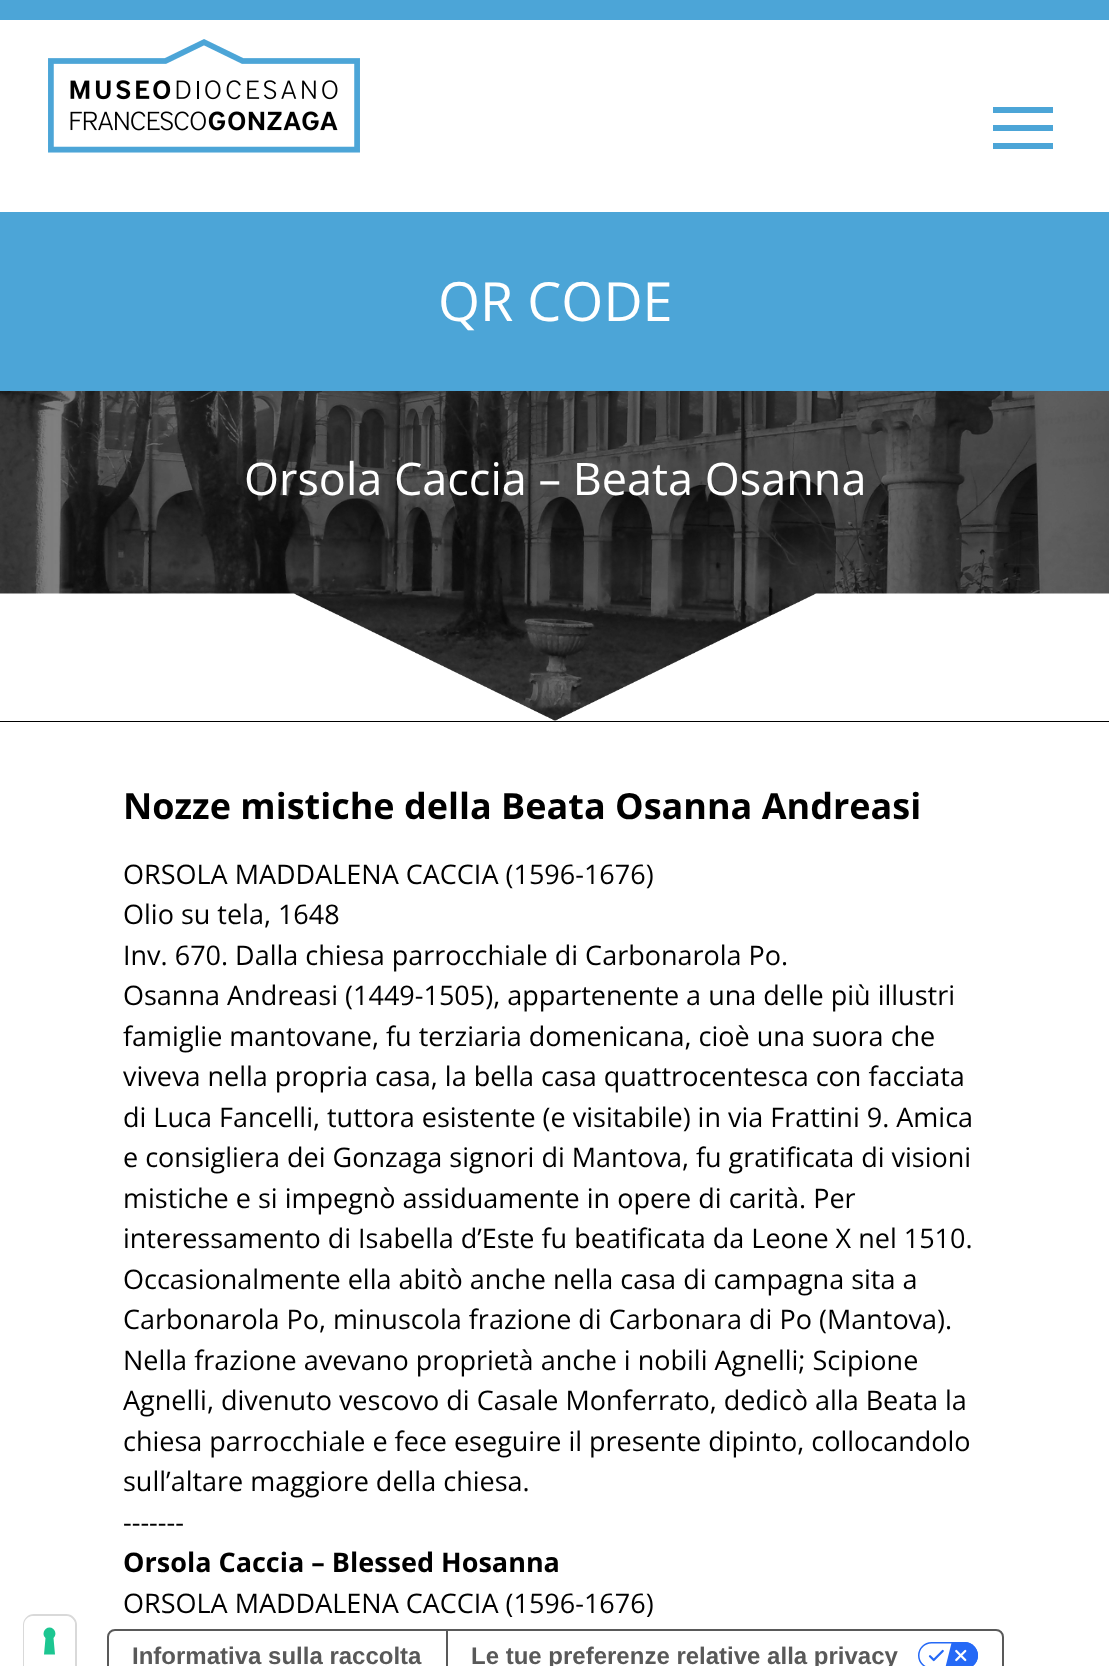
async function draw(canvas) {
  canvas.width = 1109;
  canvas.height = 1666;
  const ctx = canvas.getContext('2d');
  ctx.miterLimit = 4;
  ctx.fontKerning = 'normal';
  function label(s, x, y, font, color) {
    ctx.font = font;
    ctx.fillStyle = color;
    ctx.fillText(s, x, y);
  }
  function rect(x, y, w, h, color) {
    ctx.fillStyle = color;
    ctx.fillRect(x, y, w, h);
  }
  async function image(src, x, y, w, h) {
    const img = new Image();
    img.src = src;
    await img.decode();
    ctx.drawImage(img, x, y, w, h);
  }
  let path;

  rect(0, 0, 1109, 1666, '#fff');
  rect(0, 0, 1109, 20, '#4ca5d7');
  await image('assets/img1.png', 48, 39, 312, 114);
  rect(993, 107, 60, 6, '#4ca5d7');
  rect(993, 125, 60, 6, '#4ca5d7');
  rect(993, 143, 60, 6, '#4ca5d7');
  rect(0, 212, 1109, 179, '#4ca5d7');
  label('QR CODE', 438, 321, '54px Open Sans', '#fff');
  rect(0, 721, 1109, 1, '#000');
  await image('assets/img2.png', 0, 391, 1109, 330);
  label('Orsola Caccia – Beata Osanna', 244, 495, '45px Open Sans', '#fff');
  await image('assets/img3.png', 0, 593, 1109, 128);
  label('Nozze mistiche della Beata Osanna Andreasi', 123, 819, 'bold 36px Open Sans', '#000');
  label('ORSOLA MADDALENA CACCIA (1596-1676)', 123, 884, '27px Open Sans', '#000');
  label('Olio su tela, 1648', 123, 924, '27px Open Sans', '#000');
  label('Inv. 670. Dalla chiesa parrocchiale di Carbonarola Po.', 123, 965, '27px Open Sans', '#000');
  label('Osanna Andreasi (1449-1505), appartenente a una delle più illustri', 123, 1005, '27px Open Sans', '#000');
  label('famiglie mantovane, fu terziaria domenicana, cioè una suora che', 123, 1046, '27px Open Sans', '#000');
  label('viveva nella propria casa, la bella casa quattrocentesca con facciata', 123, 1086, '27px Open Sans', '#000');
  label('di Luca Fancelli, tuttora esistente (e visitabile) in via Frattini 9. Amica', 123, 1127, '27px Open Sans', '#000');
  label('e consigliera dei Gonzaga signori di Mantova, fu gratificata di visioni', 123, 1167, '27px Open Sans', '#000');
  label('mistiche e si impegnò assiduamente in opere di carità. Per', 123, 1208, '27px Open Sans', '#000');
  label('interessamento di Isabella d’Este fu beatificata da Leone X nel 1510.', 123, 1248, '27px Open Sans', '#000');
  label('Occasionalmente ella abitò anche nella casa di campagna sita a', 123, 1289, '27px Open Sans', '#000');
  label('Carbonarola Po, minuscola frazione di Carbonara di Po (Mantova).', 123, 1329, '27px Open Sans', '#000');
  label('Nella frazione avevano proprietà anche i nobili Agnelli; Scipione', 123, 1370, '27px Open Sans', '#000');
  label('Agnelli, divenuto vescovo di Casale Monferrato, dedicò alla Beata la', 123, 1410, '27px Open Sans', '#000');
  label('chiesa parrocchiale e fece eseguire il presente dipinto, collocandolo', 123, 1451, '27px Open Sans', '#000');
  label('sull’altare maggiore della chiesa.', 123, 1491, '27px Open Sans', '#000');
  label('-------', 123, 1532, '27px Open Sans', '#000');
  label('Orsola Caccia – Blessed Hosanna', 123, 1572, 'bold 27px Open Sans', '#000');
  ctx.save();
  ctx.beginPath();
  ctx.rect(0, 0, 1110, 1617);
  ctx.clip();
  label('ORSOLA MADDALENA CACCIA (1596-1676)', 123, 1613, '27px Open Sans', '#000');
  ctx.restore();
  path = new Path2D('M34 1615H66C71.5 1615 76 1619.5 76 1625V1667H24V1625C24 1619.5 28.5 1615 34 1615Z');
  ctx.strokeStyle = '#d9d9d9';
  ctx.lineWidth = 2;
  ctx.stroke(path);
  ctx.fillStyle = '#fff';
  path = new Path2D('M33 1616H66C71 1616 75 1620 75 1625V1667H24V1625C24 1620 28 1616 33 1616Z');
  ctx.fill(path);
  ctx.fillStyle = '#1cc691';
  path = new Path2D('M49.5 1627.5C55 1627.5 57.5 1634.5 53.5 1638L55 1654.5H44L45.5 1638C41.5 1634.5 44 1627.5 49.5 1627.5Z');
  ctx.fill(path, 'evenodd');
  ctx.beginPath();
  ctx.roundRect(108, 1630, 895, 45, 7);
  ctx.strokeStyle = '#595959';
  ctx.stroke();
  label('Informativa sulla raccolta', 132, 1664, 'bold 24px Liberation Sans', '#595959');
  rect(446, 1631, 2, 35, '#595959');
  label('Le tue preferenze relative alla privacy', 471, 1664, 'bold 24px Liberation Sans', '#595959');
  await image('assets/img4.png', 918, 1642, 60, 24);
}

draw(document.querySelector('canvas'));
